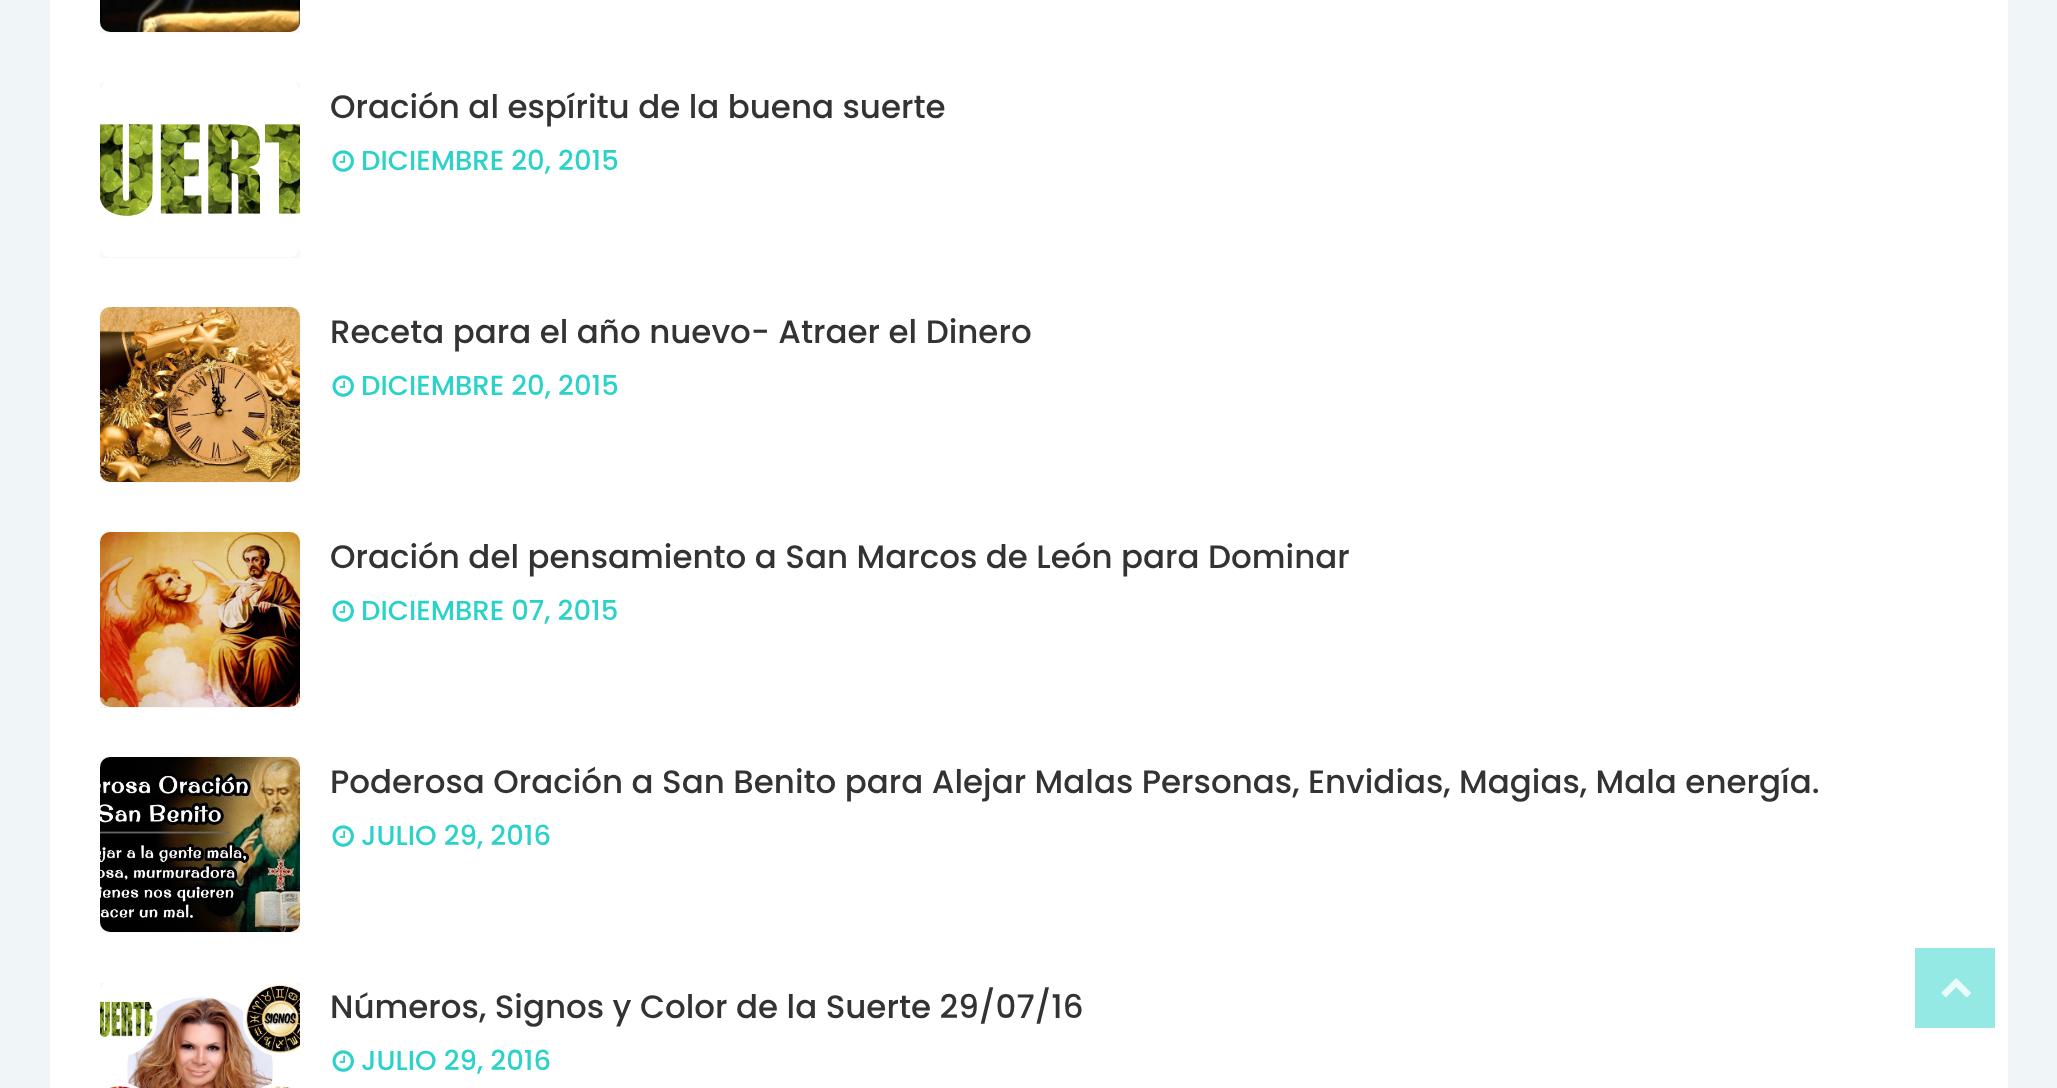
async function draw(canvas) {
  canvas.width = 2057;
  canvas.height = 1088;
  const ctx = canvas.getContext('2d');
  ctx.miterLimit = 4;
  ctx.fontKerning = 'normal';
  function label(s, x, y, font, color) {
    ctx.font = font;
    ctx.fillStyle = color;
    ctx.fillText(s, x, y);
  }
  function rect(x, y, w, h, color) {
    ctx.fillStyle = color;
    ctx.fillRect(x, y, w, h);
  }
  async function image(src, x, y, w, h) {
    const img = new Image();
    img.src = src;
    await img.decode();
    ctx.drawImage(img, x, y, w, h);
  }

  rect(0, 0, 2057, 1088, '#f0f5f8');
  rect(50, 0, 1958, 1088, '#fff');
  rect(100, 22, 200, 11, '#f8f8f8');
  await image('assets/img1.png', 100, 0, 200, 32);
  rect(100, 83, 200, 175, '#f8f8f8');
  await image('assets/img2.png', 100, 83, 200, 174);
  label('Oración al espíritu de la buena suerte', 330, 118, '500 32.5px Poppins', '#333');
  await image('assets/img3.png', 332, 150, 22, 22);
  label('DICIEMBRE 20, 2015', 361, 170, '500 27.5px Poppins', '#2ad2c9');
  rect(100, 308, 200, 175, '#f8f8f8');
  await image('assets/img4.png', 100, 307, 200, 175);
  label('Receta para el año nuevo- Atraer el Dinero', 330, 343, '500 32.5px Poppins', '#333');
  await image('assets/img3.png', 332, 375, 22, 22);
  label('DICIEMBRE 20, 2015', 361, 395, '500 27.5px Poppins', '#2ad2c9');
  rect(100, 533, 200, 175, '#f8f8f8');
  await image('assets/img5.png', 100, 532, 200, 175);
  label('Oración del pensamiento a San Marcos de León para Dominar', 330, 568, '500 32.5px Poppins', '#333');
  await image('assets/img3.png', 332, 600, 22, 22);
  label('DICIEMBRE 07, 2015', 361, 620, '500 27.5px Poppins', '#2ad2c9');
  rect(100, 758, 200, 175, '#f8f8f8');
  await image('assets/img6.png', 100, 757, 200, 175);
  label('Poderosa Oración a San Benito para Alejar Malas Personas, Envidias, Magias, Mala energía.', 330, 793, '500 32.5px Poppins', '#333');
  await image('assets/img3.png', 332, 825, 22, 22);
  label('JULIO 29, 2016', 361, 845, '500 27.5px Poppins', '#2ad2c9');
  rect(100, 983, 200, 9, '#f8f8f8');
  await image('assets/img7.png', 100, 983, 200, 105);
  label('Números, Signos y Color de la Suerte 29/07/16', 330, 1018, '500 32.5px Poppins', '#333');
  await image('assets/img3.png', 332, 1050, 22, 22);
  label('JULIO 29, 2016', 361, 1070, '500 27.5px Poppins', '#2ad2c9');
  rect(1915, 948, 80, 80, '#95e9e4');
  await image('assets/img8.png', 1941, 978, 30, 20);
}

draw(document.querySelector('canvas'));
